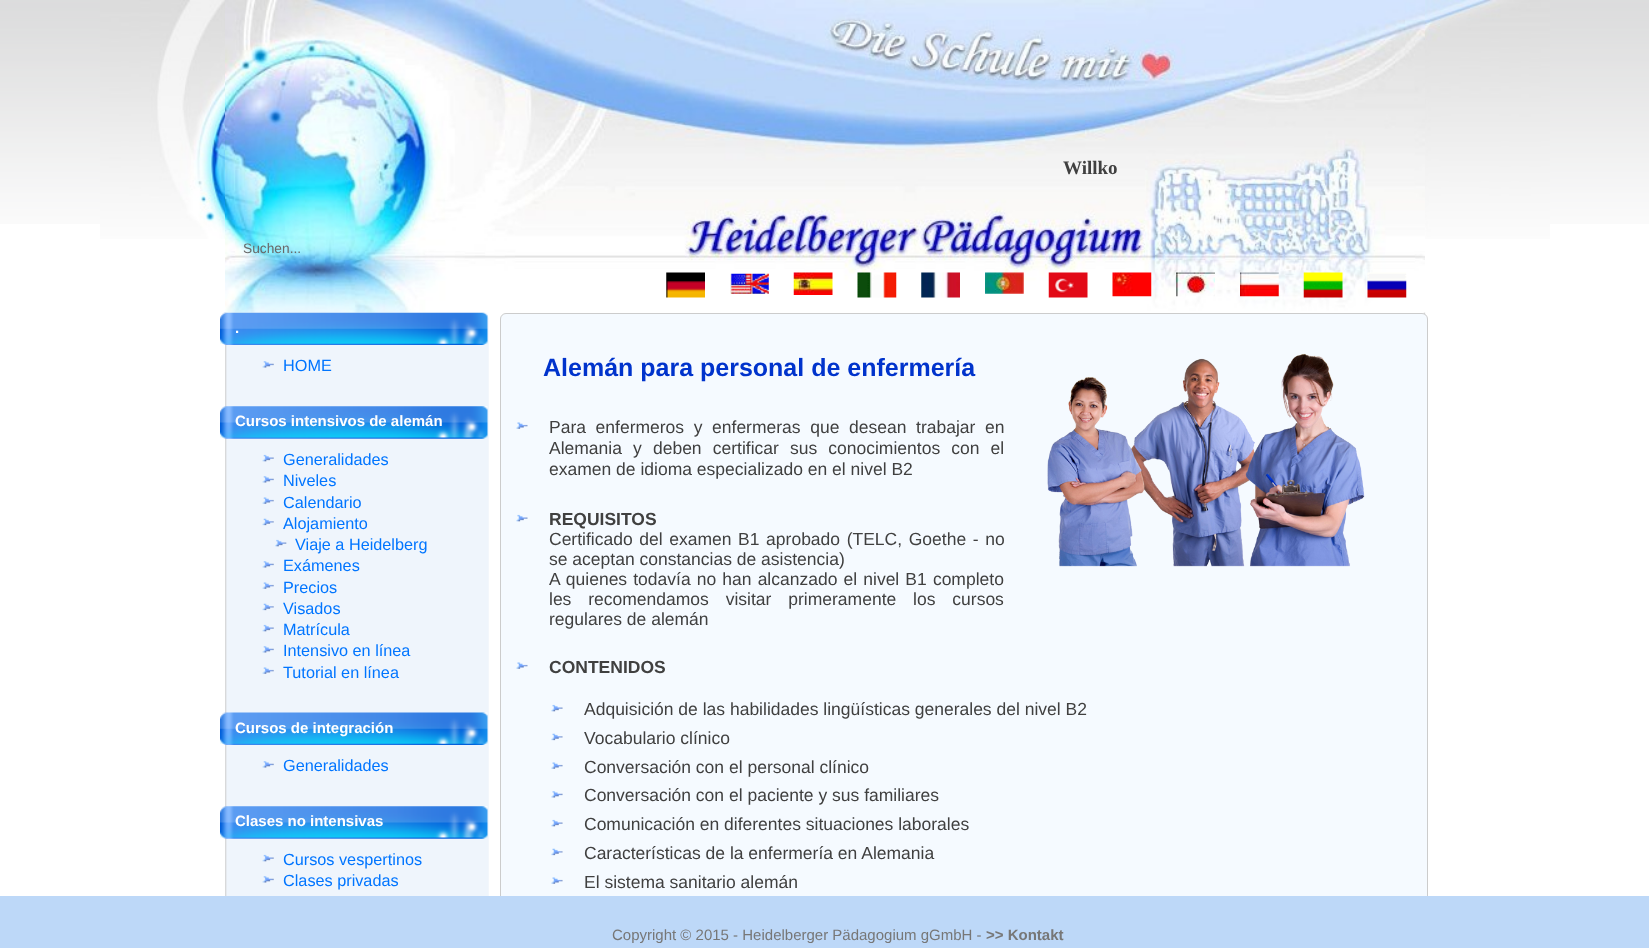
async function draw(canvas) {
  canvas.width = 1649;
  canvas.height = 948;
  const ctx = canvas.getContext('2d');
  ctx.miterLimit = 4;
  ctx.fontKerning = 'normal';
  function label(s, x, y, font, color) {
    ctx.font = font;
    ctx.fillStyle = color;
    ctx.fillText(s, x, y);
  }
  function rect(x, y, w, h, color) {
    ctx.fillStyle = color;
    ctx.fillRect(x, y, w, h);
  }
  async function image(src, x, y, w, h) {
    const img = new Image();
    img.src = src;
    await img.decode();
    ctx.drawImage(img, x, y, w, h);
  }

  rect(0, 0, 1649, 948, '#fff');
  await image('assets/img1.png', 0, 0, 1649, 224);
  await image('assets/img2.png', 100, 0, 1450, 239);
  await image('assets/img16.png', 225, 312, 1201, 584);
  await image('assets/img17.png', 225, 312, 1200, 6);
  await image('assets/img18.png', 220, 312, 268, 33);
  await image('assets/img3.png', 225, 0, 1200, 313);
  label('Willko', 1063, 174, 'bold 19px Liberation Serif', '#404040');
  label('Suchen...', 243, 253, '13.75px Liberation Sans', '#696969');
  await image('assets/img4.png', 666, 272, 39, 26);
  await image('assets/img5.png', 730, 273, 39, 21);
  await image('assets/img6.png', 793, 272, 40, 23);
  await image('assets/img7.png', 857, 272, 40, 26);
  await image('assets/img8.png', 921, 272, 39, 26);
  await image('assets/img9.png', 985, 272, 39, 22);
  await image('assets/img10.png', 1048, 272, 40, 26);
  await image('assets/img11.png', 1112, 272, 40, 25);
  await image('assets/img12.png', 1176, 272, 39, 25);
  await image('assets/img13.png', 1240, 272, 39, 25);
  await image('assets/img14.png', 1303, 272, 40, 26);
  await image('assets/img15.png', 1367, 272, 40, 26);
  label('.', 235, 333, 'bold 15px Liberation Sans', '#fff');
  await image('assets/img19.png', 262, 361, 12, 7);
  label('HOME', 283, 371, '16.25px Liberation Sans', '#0075ff');
  await image('assets/img20.png', 220, 406, 268, 33);
  label('Cursos intensivos de alemán', 235, 426, 'bold 15px Liberation Sans', '#fff');
  await image('assets/img21.png', 262, 454, 12, 8);
  label('Generalidades', 283, 465, '16.25px Liberation Sans', '#0075ff');
  await image('assets/img19.png', 262, 476, 12, 7);
  label('Niveles', 283, 486, '16.25px Liberation Sans', '#0075ff');
  await image('assets/img22.png', 262, 497, 12, 7);
  label('Calendario', 283, 508, '16.25px Liberation Sans', '#0075ff');
  await image('assets/img23.png', 262, 518, 12, 8);
  label('Alojamiento', 283, 529, '16.25px Liberation Sans', '#0075ff');
  await image('assets/img24.png', 275, 539, 12, 8);
  label('Viaje a Heidelberg', 295, 550, '16.25px Liberation Sans', '#0075ff');
  await image('assets/img19.png', 262, 561, 12, 7);
  label('Exámenes', 283, 571, '16.25px Liberation Sans', '#0075ff');
  await image('assets/img22.png', 262, 582, 12, 7);
  label('Precios', 283, 593, '16.25px Liberation Sans', '#0075ff');
  await image('assets/img23.png', 262, 603, 12, 8);
  label('Visados', 283, 614, '16.25px Liberation Sans', '#0075ff');
  await image('assets/img21.png', 262, 624, 12, 8);
  label('Matrícula', 283, 635, '16.25px Liberation Sans', '#0075ff');
  await image('assets/img19.png', 262, 646, 12, 7);
  label('Intensivo en línea', 283, 656, '16.25px Liberation Sans', '#0075ff');
  await image('assets/img22.png', 262, 667, 12, 7);
  label('Tutorial en línea', 283, 678, '16.25px Liberation Sans', '#0075ff');
  await image('assets/img25.png', 220, 712, 268, 33);
  label('Cursos de integración', 235, 733, 'bold 15px Liberation Sans', '#fff');
  await image('assets/img19.png', 262, 761, 12, 7);
  label('Generalidades', 283, 771, '16.25px Liberation Sans', '#0075ff');
  await image('assets/img20.png', 220, 806, 268, 33);
  label('Clases no intensivas', 235, 826, 'bold 15px Liberation Sans', '#fff');
  await image('assets/img21.png', 262, 854, 12, 8);
  label('Cursos vespertinos', 283, 865, '16.25px Liberation Sans', '#0075ff');
  await image('assets/img19.png', 262, 876, 12, 7);
  label('Clases privadas', 283, 886, '16.25px Liberation Sans', '#0075ff');
  ctx.fillStyle = '#f5faff';
  ctx.beginPath();
  ctx.roundRect(500.5, 313.5, 927, 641, 5.5);
  ctx.fill();
  ctx.strokeStyle = '#ccc';
  ctx.stroke();
  label('Alemán para personal de enfermería', 543, 376, 'bold 25px Liberation Sans', '#03c');
  await image('assets/img26.png', 1047, 353, 318, 214);
  await image('assets/img27.png', 516, 422, 12, 7);
  ctx.wordSpacing = '4.75px';
  label('Para enfermeros y enfermeras que desean trabajar en', 549, 433, '17.5px Liberation Sans', '#404040');
  ctx.wordSpacing = '6.25px';
  label('Alemania y deben certificar sus conocimientos con el', 549, 454, '17.5px Liberation Sans', '#404040');
  ctx.wordSpacing = '0px';
  label('examen de idioma especializado en el nivel B2', 549, 475, '17.5px Liberation Sans', '#404040');
  await image('assets/img28.png', 516, 514, 12, 8);
  label('REQUISITOS', 549, 525, 'bold 17.5px Liberation Sans', '#404040');
  ctx.wordSpacing = '1.75px';
  label('Certificado del examen B1 aprobado (TELC, Goethe - no', 549, 545, '17.5px Liberation Sans', '#404040');
  ctx.wordSpacing = '0px';
  label('se aceptan constancias de asistencia)', 549, 565, '17.5px Liberation Sans', '#404040');
  ctx.wordSpacing = '1.25px';
  label('A quienes todavía no han alcanzado el nivel B1 completo', 549, 585, '17.5px Liberation Sans', '#404040');
  ctx.wordSpacing = '12px';
  label('les recomendamos visitar primeramente los cursos', 549, 605, '17.5px Liberation Sans', '#404040');
  ctx.wordSpacing = '0px';
  label('regulares de alemán', 549, 625, '17.5px Liberation Sans', '#404040');
  await image('assets/img27.png', 516, 662, 12, 7);
  label('CONTENIDOS', 549, 673, 'bold 17.5px Liberation Sans', '#404040');
  await image('assets/img29.png', 551, 704, 12, 8);
  label('Adquisición de las habilidades lingüísticas generales del nivel B2', 584, 715, '17.5px Liberation Sans', '#404040');
  await image('assets/img30.png', 551, 733, 12, 8);
  label('Vocabulario clínico', 584, 744, '17.5px Liberation Sans', '#404040');
  await image('assets/img31.png', 551, 762, 12, 7);
  label('Conversación con el personal clínico', 584, 773, '17.5px Liberation Sans', '#404040');
  await image('assets/img32.png', 551, 791, 12, 7);
  label('Conversación con el paciente y sus familiares', 584, 801, '17.5px Liberation Sans', '#404040');
  await image('assets/img29.png', 551, 819, 12, 8);
  label('Comunicación en diferentes situaciones laborales', 584, 830, '17.5px Liberation Sans', '#404040');
  await image('assets/img30.png', 551, 848, 12, 8);
  label('Características de la enfermería en Alemania', 584, 859, '17.5px Liberation Sans', '#404040');
  await image('assets/img31.png', 551, 877, 12, 7);
  label('El sistema sanitario alemán', 584, 888, '17.5px Liberation Sans', '#404040');
  rect(0, 896, 1649, 52, '#bdd8f8');
  label('Copyright © 2015 - Heidelberger Pädagogium gGmbH -', 612, 940, '15px Liberation Sans', '#777');
  label('>> Kontakt', 986, 940, 'bold 15px Liberation Sans', '#777');
}

draw(document.querySelector('canvas'));
